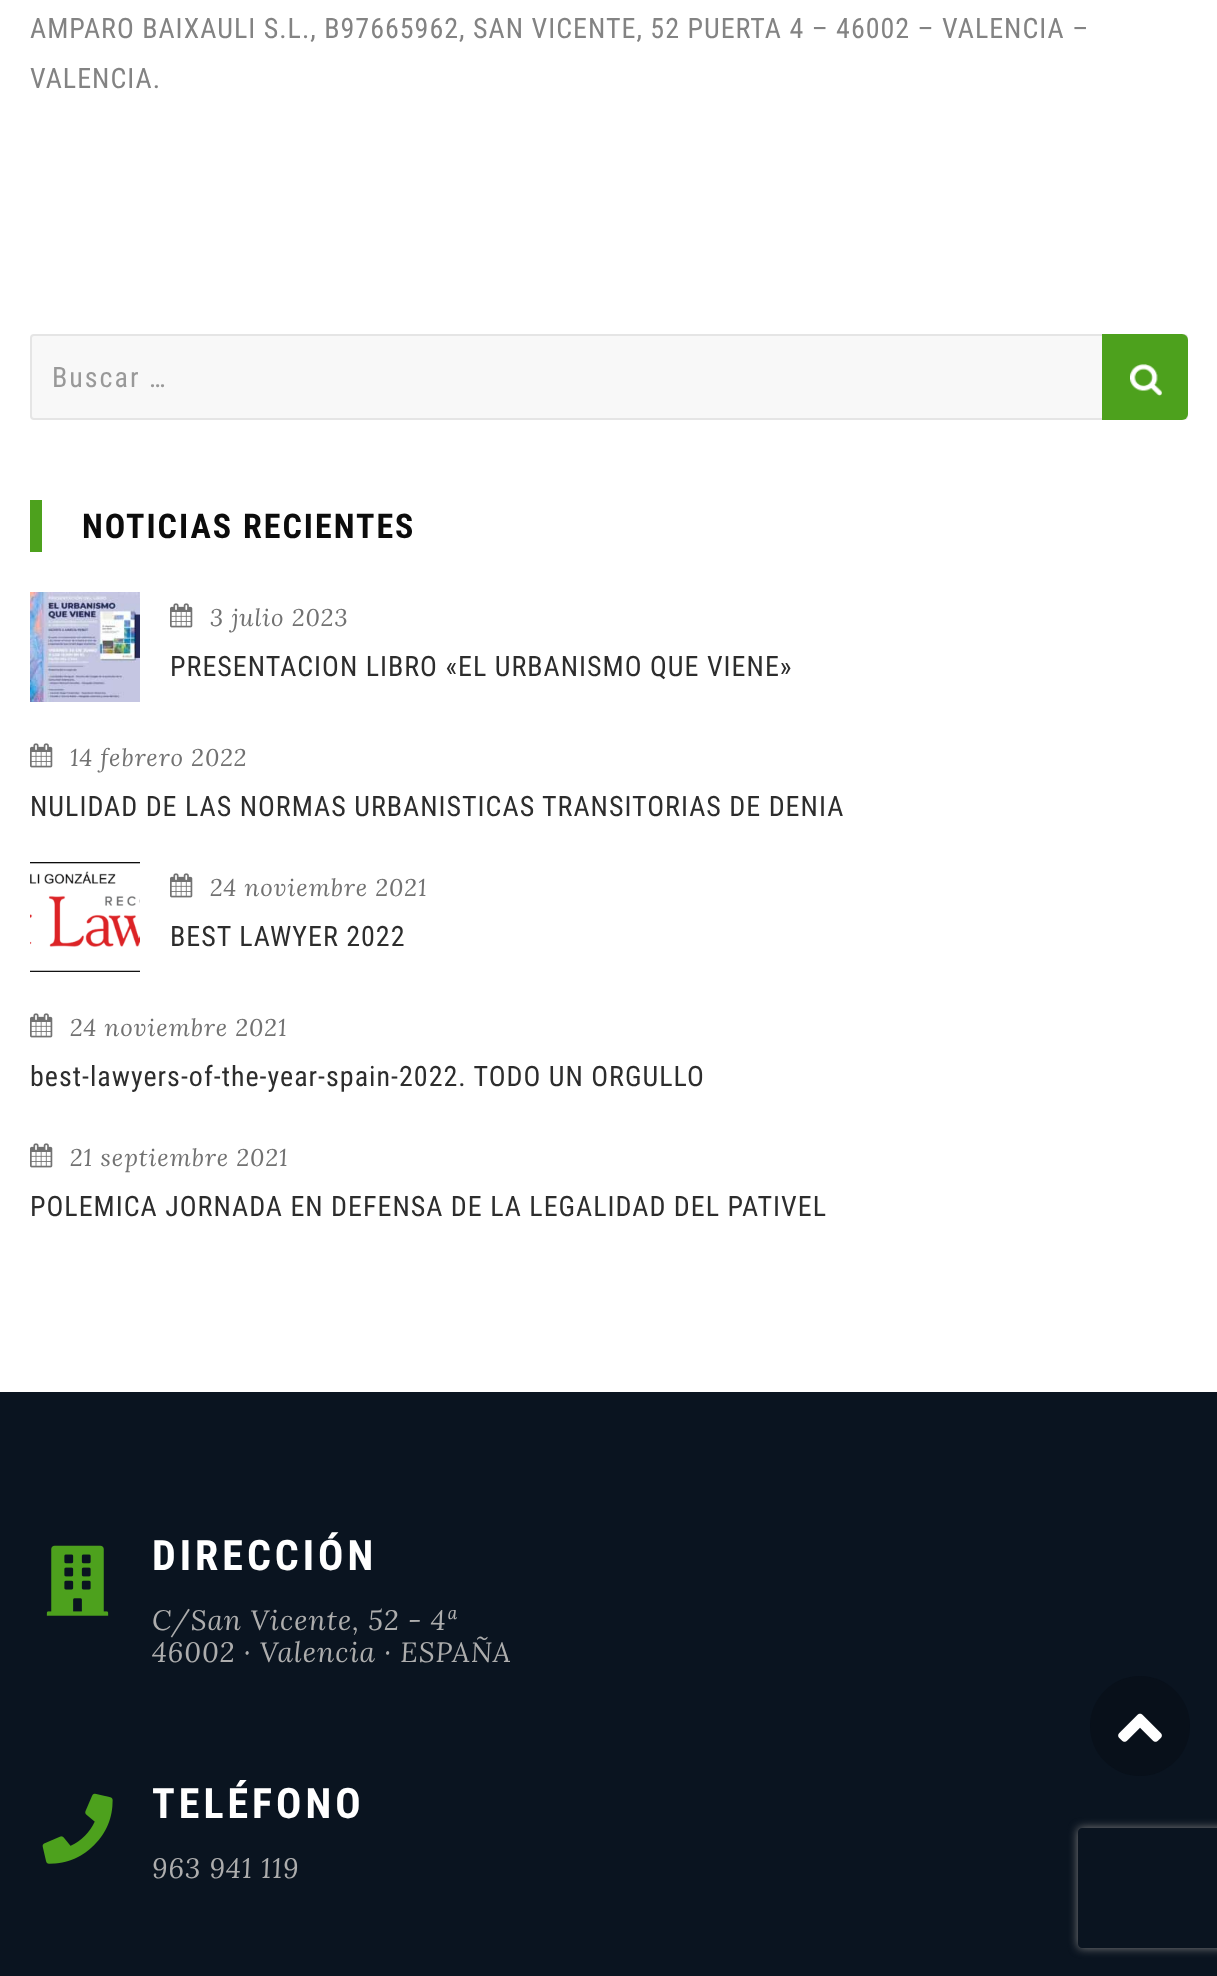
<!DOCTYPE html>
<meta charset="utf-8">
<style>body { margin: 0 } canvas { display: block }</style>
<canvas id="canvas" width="1217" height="1976"></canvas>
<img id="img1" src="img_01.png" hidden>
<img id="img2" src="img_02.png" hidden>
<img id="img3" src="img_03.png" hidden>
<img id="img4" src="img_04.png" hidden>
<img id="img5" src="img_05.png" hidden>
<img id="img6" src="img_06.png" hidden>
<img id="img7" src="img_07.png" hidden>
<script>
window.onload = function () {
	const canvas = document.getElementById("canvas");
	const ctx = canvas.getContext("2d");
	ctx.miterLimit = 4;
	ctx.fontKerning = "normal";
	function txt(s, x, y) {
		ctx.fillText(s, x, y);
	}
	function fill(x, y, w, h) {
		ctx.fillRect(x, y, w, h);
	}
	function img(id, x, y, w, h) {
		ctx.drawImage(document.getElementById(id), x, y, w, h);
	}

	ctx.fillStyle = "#FFFFFF";
	fill(0, 0, 1217, 1976);
	ctx.fillStyle = "#F8F8F8";
	ctx.beginPath();
	ctx.roundRect(31, 335, 1156, 84, 3);
	ctx.fill();
	ctx.strokeStyle = "#E5E5E5";
	ctx.lineWidth = 2;
	ctx.stroke();
	ctx.fillStyle = "#4DA11D";
	ctx.beginPath();
	ctx.roundRect(1102, 334, 86, 86, [0, 6, 6, 0]);
	ctx.fill();
	img("img1", 1130, 364, 32, 32);
	fill(30, 500, 12, 52);
	img("img2", 30, 592, 110, 110);
	img("img3", 170, 603, 23, 25);
	img("img3", 30, 743, 23, 25);
	img("img4", 30, 862, 110, 110);
	img("img3", 170, 873, 23, 25);
	img("img3", 30, 1013, 23, 25);
	img("img3", 30, 1143, 23, 25);
	ctx.fillStyle = "#0A1420";
	fill(0, 1392, 1217, 584);
	img("img5", 46, 1545, 63, 71);
	img("img6", 42, 1793, 71, 71);
	ctx.fillStyle = "#08101A";
	ctx.beginPath();
	ctx.arc(1140, 1726, 50, 0, Math.PI * 2);
	ctx.fill();
	img("img7", 1118, 1713, 44, 29);
	ctx.save();
	ctx.beginPath();
	ctx.moveTo(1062, 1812);
	ctx.lineTo(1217, 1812);
	ctx.lineTo(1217, 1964);
	ctx.lineTo(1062, 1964);
	ctx.closePath();
	ctx.moveTo(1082, 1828);
	ctx.lineTo(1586, 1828);
	ctx.bezierCurveTo(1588, 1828, 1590, 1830, 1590, 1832);
	ctx.lineTo(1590, 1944);
	ctx.bezierCurveTo(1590, 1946, 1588, 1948, 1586, 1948);
	ctx.lineTo(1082, 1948);
	ctx.bezierCurveTo(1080, 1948, 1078, 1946, 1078, 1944);
	ctx.lineTo(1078, 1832);
	ctx.bezierCurveTo(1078, 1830, 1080, 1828, 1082, 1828);
	ctx.closePath();
	ctx.clip("evenodd");
	ctx.fillStyle = "#808080";
	ctx.filter = "blur(5px)";
	ctx.beginPath();
	ctx.roundRect(1078, 1828, 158, 120, 4);
	ctx.fill();
	ctx.filter = "none";
	ctx.restore();
	ctx.letterSpacing = "1px";
	ctx.font = "28px Roboto Condensed";
	ctx.fillStyle = "#838383";
	txt("AMPARO BAIXAULI S.L., B97665962, SAN VICENTE, 52 PUERTA 4 – 46002 – VALENCIA –", 30, 38);
	txt("VALENCIA.", 30, 88);
	ctx.letterSpacing = "2px";
	ctx.fillStyle = "#999999";
	txt("Buscar …", 52, 387);
	ctx.font = "bold 34px Roboto Condensed";
	ctx.fillStyle = "#0C0C0C";
	txt("NOTICIAS RECIENTES", 82, 538);
	ctx.letterSpacing = "1px";
	ctx.font = "italic 24px Lora";
	ctx.fillStyle = "#727272";
	txt("3 julio 2023", 210, 626);
	ctx.font = "28px Roboto Condensed";
	ctx.fillStyle = "#2D2D2D";
	txt("PRESENTACION LIBRO «EL URBANISMO QUE VIENE»", 170, 676);
	ctx.font = "italic 24px Lora";
	ctx.fillStyle = "#727272";
	txt("14 febrero 2022", 70, 766);
	ctx.font = "28px Roboto Condensed";
	ctx.fillStyle = "#2D2D2D";
	txt("NULIDAD DE LAS NORMAS URBANISTICAS TRANSITORIAS DE DENIA", 30, 816);
	ctx.font = "italic 24px Lora";
	ctx.fillStyle = "#727272";
	txt("24 noviembre 2021", 210, 896);
	ctx.font = "28px Roboto Condensed";
	ctx.fillStyle = "#2D2D2D";
	txt("BEST LAWYER 2022", 170, 946);
	ctx.font = "italic 24px Lora";
	ctx.fillStyle = "#727272";
	txt("24 noviembre 2021", 70, 1036);
	ctx.font = "28px Roboto Condensed";
	ctx.fillStyle = "#2D2D2D";
	txt("best-lawyers-of-the-year-spain-2022. TODO UN ORGULLO", 30, 1086);
	ctx.font = "italic 24px Lora";
	ctx.fillStyle = "#727272";
	txt("21 septiembre 2021", 70, 1166);
	ctx.font = "28px Roboto Condensed";
	ctx.fillStyle = "#2D2D2D";
	txt("POLEMICA JORNADA EN DEFENSA DE LA LEGALIDAD DEL PATIVEL", 30, 1216);
	ctx.letterSpacing = "4px";
	ctx.font = "bold 42px Roboto Condensed";
	ctx.fillStyle = "#FFFFFF";
	txt("DIRECCIÓN", 152, 1570);
	ctx.letterSpacing = "1px";
	ctx.font = "italic 28px Lora";
	ctx.fillStyle = "#ADADAD";
	txt("C/San Vicente, 52 - 4ª", 152, 1630);
	txt("46002 · Valencia · ESPAÑA", 152, 1662);
	ctx.letterSpacing = "4px";
	ctx.font = "bold 42px Roboto Condensed";
	ctx.fillStyle = "#FFFFFF";
	txt("TELÉFONO", 152, 1818);
	ctx.letterSpacing = "1px";
	ctx.font = "italic 28px Lora";
	ctx.fillStyle = "#ADADAD";
	txt("963 941 119", 152, 1878);
};
</script>
